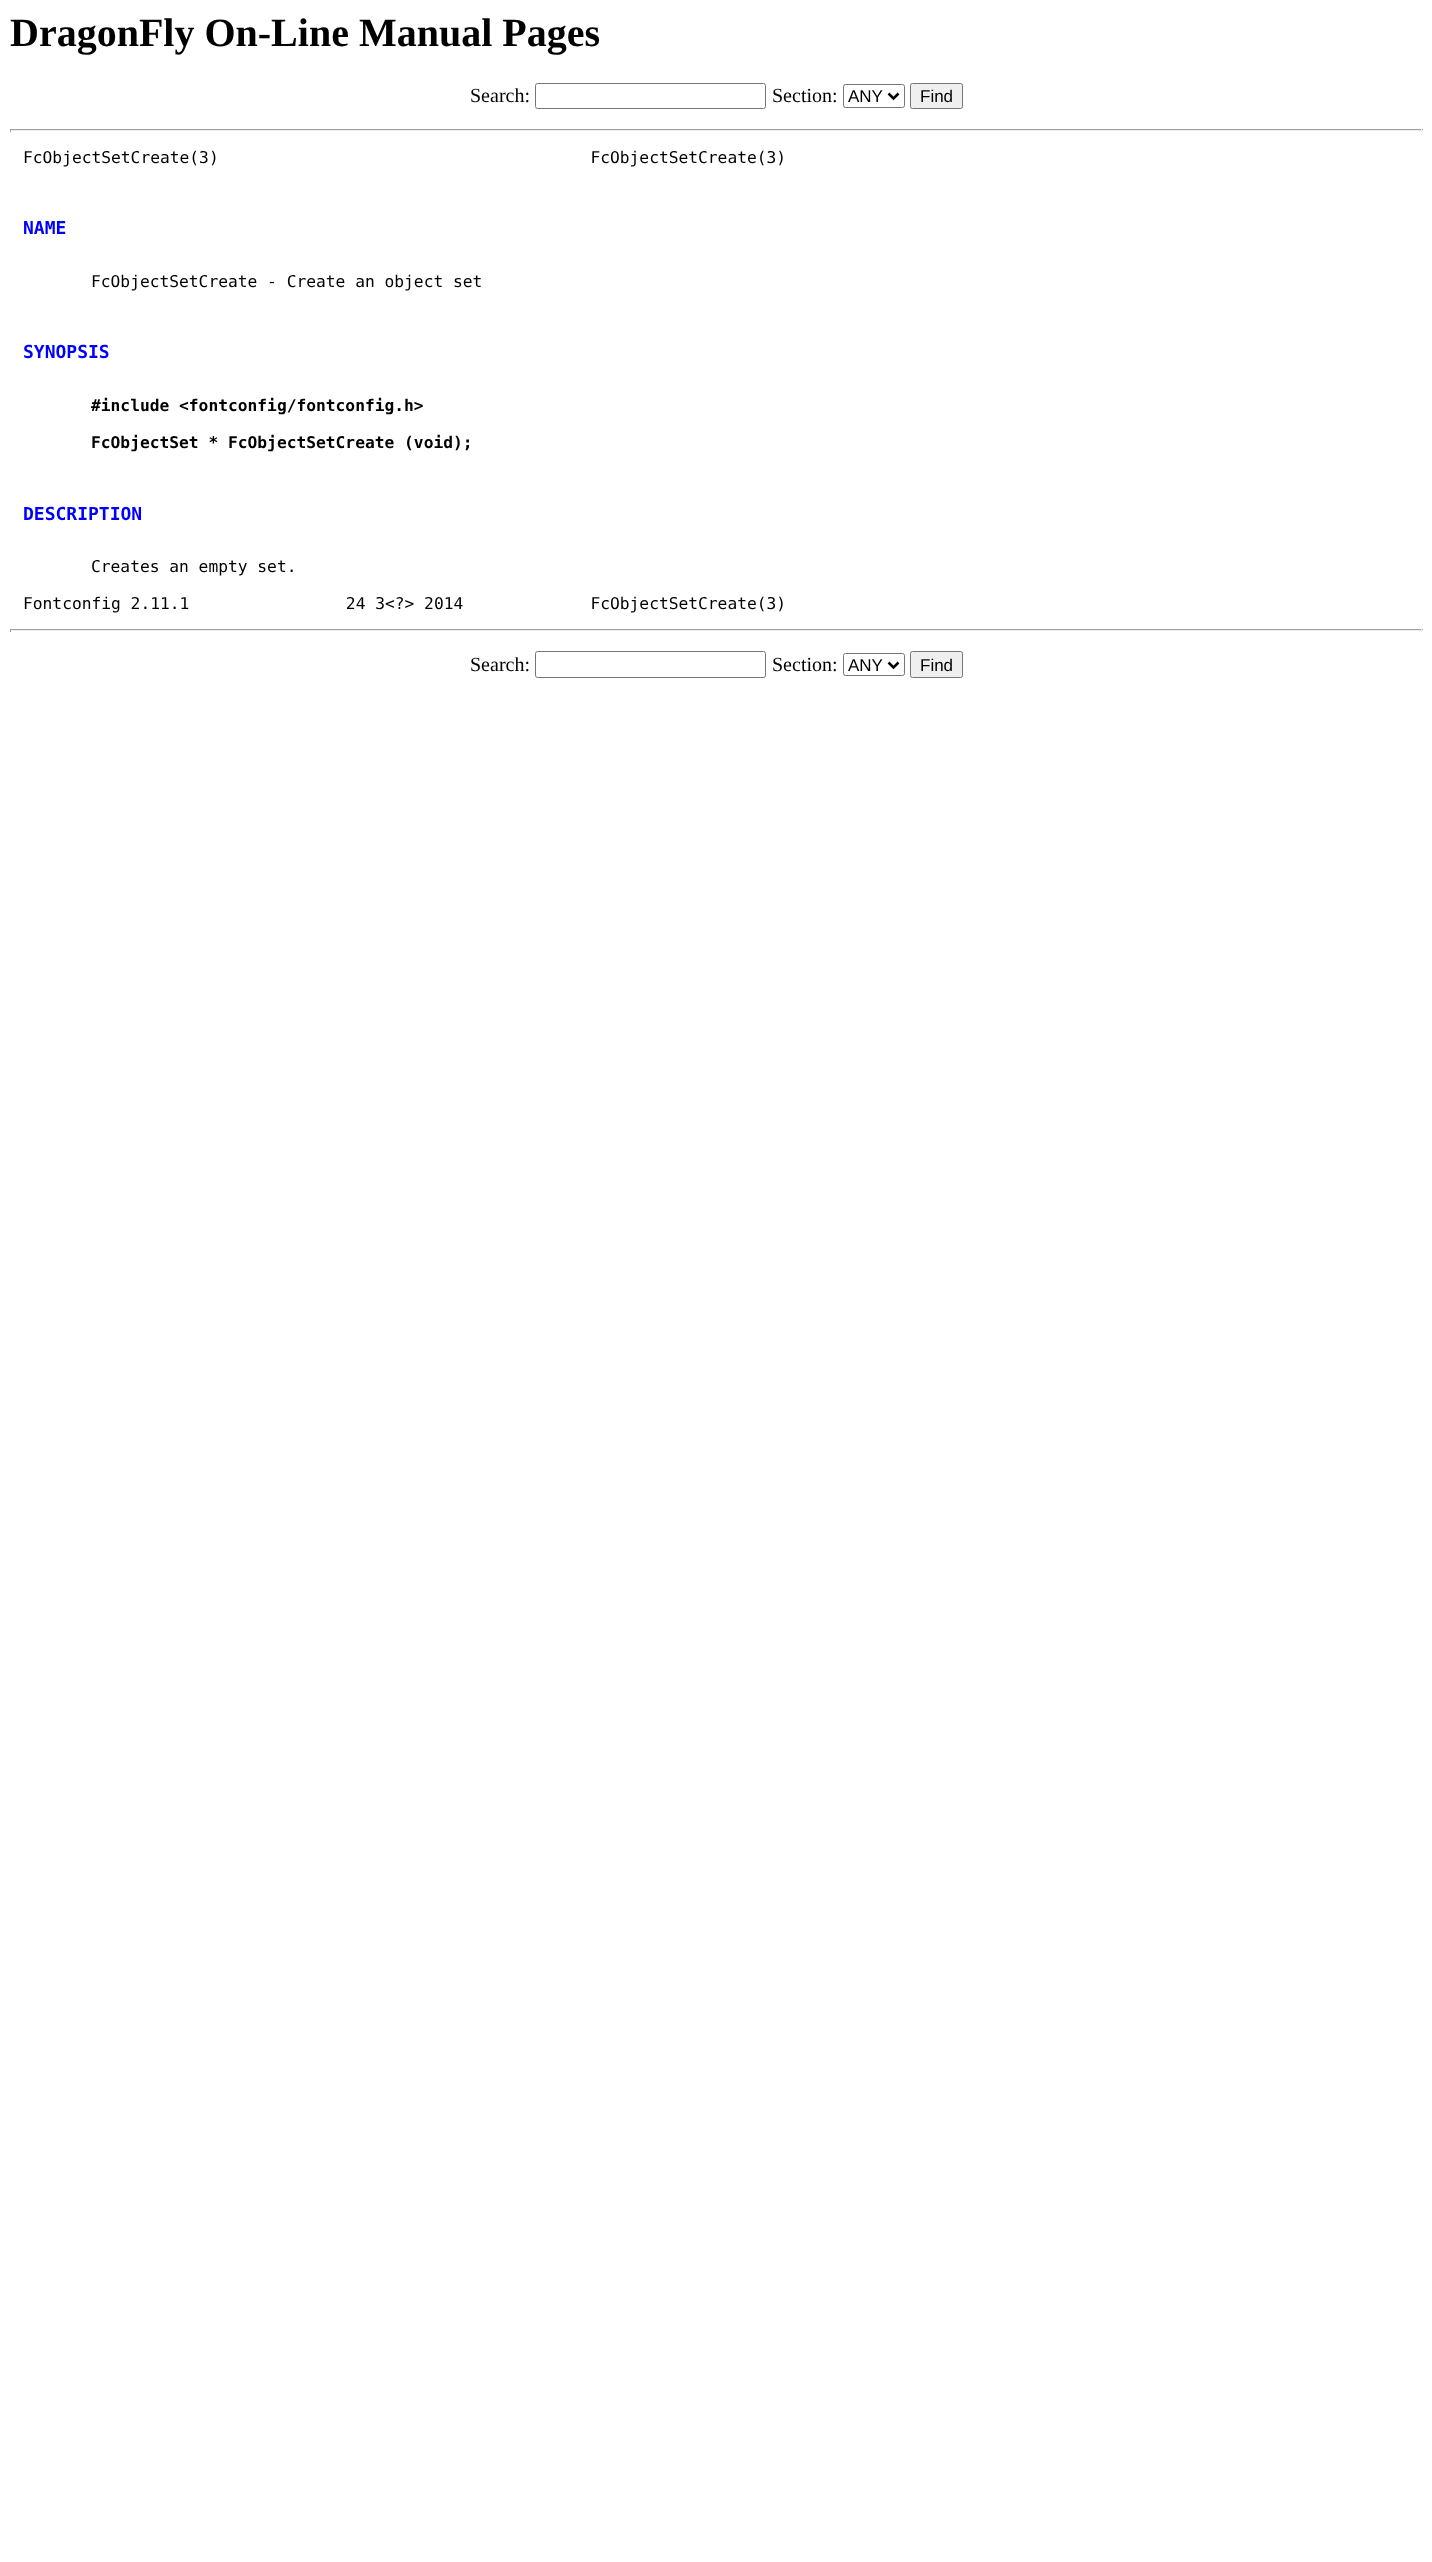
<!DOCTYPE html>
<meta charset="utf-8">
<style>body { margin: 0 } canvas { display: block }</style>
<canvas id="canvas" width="1432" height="2562"></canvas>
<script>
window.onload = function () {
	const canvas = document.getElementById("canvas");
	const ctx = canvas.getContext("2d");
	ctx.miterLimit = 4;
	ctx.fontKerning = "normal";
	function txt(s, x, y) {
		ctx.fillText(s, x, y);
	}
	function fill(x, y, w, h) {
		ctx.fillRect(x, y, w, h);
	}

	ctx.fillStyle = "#FFFFFF";
	fill(0, 0, 1432, 2562);
	ctx.beginPath();
	ctx.roundRect(535.5, 83.5, 230, 25, 2);
	ctx.strokeStyle = "#767676";
	ctx.stroke();
	ctx.beginPath();
	ctx.roundRect(843.5, 84.5, 61, 23, 2);
	ctx.stroke();
	ctx.beginPath();
	ctx.moveTo(888.5, 93.5);
	ctx.lineTo(893.5, 98.5);
	ctx.lineTo(898.5, 93.5);
	ctx.strokeStyle = "#000000";
	ctx.lineWidth = 2.5;
	ctx.stroke();
	ctx.fillStyle = "#EFEFEF";
	ctx.beginPath();
	ctx.roundRect(910.5, 83.5, 52, 25, 2);
	ctx.fill();
	ctx.strokeStyle = "#767676";
	ctx.lineWidth = 1;
	ctx.stroke();
	ctx.fillStyle = "#9F9F9F";
	fill(10, 129, 1413, 1);
	ctx.fillStyle = "#EEEEEE";
	fill(1421, 129, 1, 3);
	fill(10, 130, 1413, 1);
	ctx.fillStyle = "#9F9F9F";
	fill(10, 129, 1, 3);
	fill(10, 629, 1413, 1);
	ctx.fillStyle = "#EEEEEE";
	fill(1421, 629, 1, 3);
	fill(10, 630, 1413, 1);
	ctx.fillStyle = "#9F9F9F";
	fill(10, 629, 1, 3);
	ctx.beginPath();
	ctx.roundRect(535.5, 651.5, 230, 26, 2);
	ctx.stroke();
	ctx.beginPath();
	ctx.roundRect(843.5, 653.5, 61, 22, 2);
	ctx.stroke();
	ctx.beginPath();
	ctx.moveTo(888.5, 662.5);
	ctx.lineTo(893.5, 667.5);
	ctx.lineTo(898.5, 662.5);
	ctx.strokeStyle = "#000000";
	ctx.lineWidth = 2.5;
	ctx.stroke();
	ctx.fillStyle = "#EFEFEF";
	ctx.beginPath();
	ctx.roundRect(910.5, 651.5, 52, 26, 2);
	ctx.fill();
	ctx.strokeStyle = "#767676";
	ctx.lineWidth = 1;
	ctx.stroke();
	ctx.font = "bold 40px Liberation Serif";
	ctx.fillStyle = "#000000";
	txt("DragonFly On-Line Manual Pages", 10, 46);
	ctx.font = "20px Liberation Serif";
	txt("Search:", 470, 102);
	txt("Section:", 772, 102);
	ctx.font = "17px Liberation Sans";
	txt("ANY", 848, 102);
	txt("Find", 920, 102);
	ctx.font = "16.25px DejaVu Sans Mono";
	txt("FcObjectSetCreate(3)                                      FcObjectSetCreate(3)", 23, 163);
	ctx.font = "bold 18px DejaVu Sans Mono";
	ctx.fillStyle = "#0000FF";
	txt("NAME", 23, 234);
	ctx.font = "16.25px DejaVu Sans Mono";
	ctx.fillStyle = "#000000";
	txt("FcObjectSetCreate - Create an object set", 91, 287);
	ctx.font = "bold 18px DejaVu Sans Mono";
	ctx.fillStyle = "#0000FF";
	txt("SYNOPSIS", 23, 358);
	ctx.font = "bold 16.25px DejaVu Sans Mono";
	ctx.fillStyle = "#000000";
	txt("#include <fontconfig/fontconfig.h>", 91, 411);
	txt("FcObjectSet * FcObjectSetCreate (void);", 91, 448);
	ctx.font = "bold 18px DejaVu Sans Mono";
	ctx.fillStyle = "#0000FF";
	txt("DESCRIPTION", 23, 520);
	ctx.font = "16.25px DejaVu Sans Mono";
	ctx.fillStyle = "#000000";
	txt("Creates an empty set.", 91, 572);
	txt("Fontconfig 2.11.1                24 3<?> 2014             FcObjectSetCreate(3)", 23, 609);
	ctx.font = "20px Liberation Serif";
	txt("Search:", 470, 671);
	txt("Section:", 772, 671);
	ctx.font = "17px Liberation Sans";
	txt("ANY", 848, 671);
	txt("Find", 920, 671);
};
</script>
